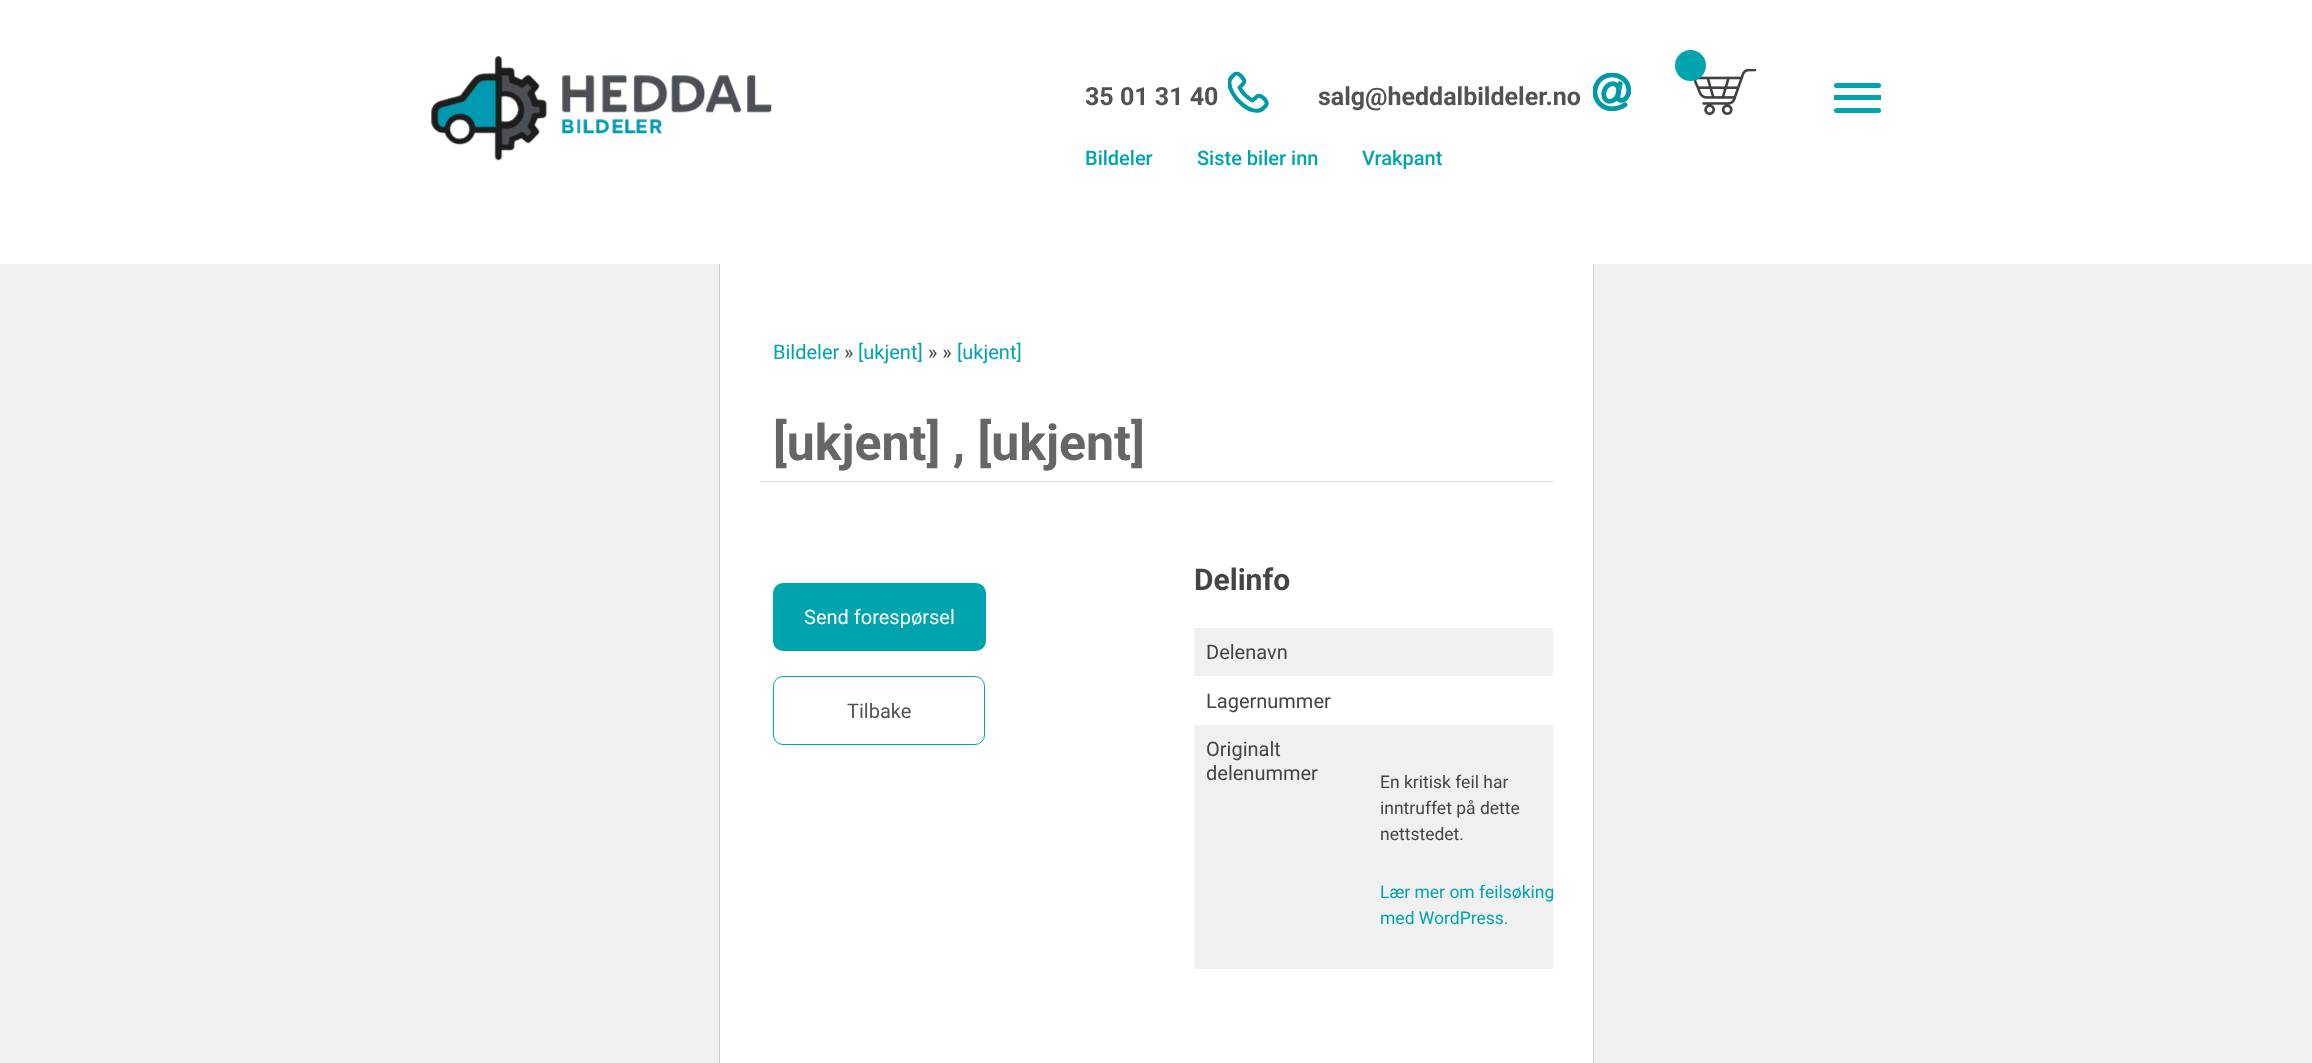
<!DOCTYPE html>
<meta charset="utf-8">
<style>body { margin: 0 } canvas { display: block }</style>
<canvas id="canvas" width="2312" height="1063"></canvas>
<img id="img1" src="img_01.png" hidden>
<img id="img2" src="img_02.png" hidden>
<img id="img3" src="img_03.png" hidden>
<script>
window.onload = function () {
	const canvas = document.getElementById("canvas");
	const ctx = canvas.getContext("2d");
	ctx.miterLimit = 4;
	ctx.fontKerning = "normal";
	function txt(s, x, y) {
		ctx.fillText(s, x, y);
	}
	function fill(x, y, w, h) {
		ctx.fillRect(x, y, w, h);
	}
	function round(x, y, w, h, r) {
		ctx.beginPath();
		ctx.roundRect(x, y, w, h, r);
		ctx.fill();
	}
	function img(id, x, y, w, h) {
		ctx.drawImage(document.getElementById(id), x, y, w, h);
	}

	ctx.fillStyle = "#F1F1F1";
	fill(0, 0, 2312, 1063);
	ctx.fillStyle = "#FFFFFF";
	fill(720, 264, 873, 799);
	ctx.strokeStyle = "#CCD0D4";
	ctx.strokeRect(719.5, 63.5, 874, 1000);
	fill(0, 0, 2312, 264);
	img("img1", 431, 56, 341, 105);
	ctx.save();
	ctx.beginPath();
	ctx.rect(1228, 71, 41, 42);
	ctx.clip();
	ctx.beginPath();
	ctx.moveTo(1263.5, 108);
	ctx.bezierCurveTo(1252.5, 119, 1227.5, 95, 1229.5, 81);
	ctx.bezierCurveTo(1230, 78.5, 1231.5, 77, 1233, 75.5);
	ctx.bezierCurveTo(1236, 72.5, 1238, 73, 1240.5, 75.5);
	ctx.bezierCurveTo(1246.5, 81.5, 1245, 82, 1239.5, 87.5);
	ctx.bezierCurveTo(1242.5, 93, 1247, 97.5, 1252.5, 100.5);
	ctx.lineTo(1257.5, 96);
	ctx.bezierCurveTo(1261.5, 94.5, 1269.5, 102, 1265.5, 106);
	ctx.closePath();
	ctx.strokeStyle = "#009AA6";
	ctx.lineWidth = 4;
	ctx.lineCap = "round";
	ctx.lineJoin = "round";
	ctx.stroke();
	ctx.restore();
	img("img2", 1593, 73, 38, 38);
	img("img3", 1694, 69, 62, 46);
	ctx.fillStyle = "#00A4AD";
	ctx.beginPath();
	ctx.arc(1690.5, 65.5, 15.5, 0, Math.PI * 2);
	ctx.fill();
	fill(1834, 95, 47, 5);
	round(1834, 83, 47, 5, 2.5);
	round(1834, 108, 47, 5, 2.5);
	ctx.fillStyle = "#DADADA";
	fill(760, 481, 793, 1);
	ctx.fillStyle = "#00A4AD";
	round(773, 583, 213, 68, 10);
	ctx.beginPath();
	ctx.roundRect(773.5, 676.5, 211, 68, 9.5);
	ctx.strokeStyle = "#00A4AD";
	ctx.stroke();
	ctx.fillStyle = "#F0F0F0";
	fill(1194, 628, 359, 48);
	fill(1194, 725, 359, 244);
	ctx.font = "bold 25px Roboto";
	ctx.fillStyle = "#525251";
	txt("35 01 31 40", 1085, 105);
	txt("salg@heddalbildeler.no", 1318, 105);
	ctx.font = "500 20px Roboto";
	ctx.fillStyle = "#00A4AD";
	txt("Bildeler", 1085, 165);
	txt("Siste biler inn", 1197, 165);
	txt("Vrakpant", 1362, 165);
	ctx.font = "20px Roboto";
	txt("Bildeler", 773, 359);
	ctx.fillStyle = "#444444";
	txt("»", 844, 359);
	ctx.fillStyle = "#00A4AD";
	txt("[ukjent]", 858, 359);
	ctx.fillStyle = "#444444";
	txt("» »", 928, 359);
	ctx.fillStyle = "#00A4AD";
	txt("[ukjent]", 957, 359);
	ctx.font = "bold 50px Roboto";
	ctx.fillStyle = "#666666";
	txt("[ukjent] , [ukjent]", 773, 460);
	ctx.font = "20px Roboto";
	ctx.fillStyle = "#FFFFFF";
	txt("Send forespørsel", 804, 624);
	ctx.fillStyle = "#525251";
	txt("Tilbake", 847, 718);
	ctx.font = "bold 30px Roboto";
	ctx.fillStyle = "#444444";
	txt("Delinfo", 1194, 590);
	ctx.font = "20px Roboto";
	txt("Delenavn", 1206, 659);
	txt("Lagernummer", 1206, 708);
	txt("Originalt", 1206, 756);
	txt("delenummer", 1206, 780);
	ctx.font = "17.5px Roboto";
	txt("En kritisk feil har", 1380, 788);
	txt("inntruffet på dette", 1380, 814);
	txt("nettstedet.", 1380, 840);
	ctx.fillStyle = "#00A4AD";
	txt("Lær mer om feilsøking", 1380, 898);
	txt("med WordPress.", 1380, 924);
};
</script>
